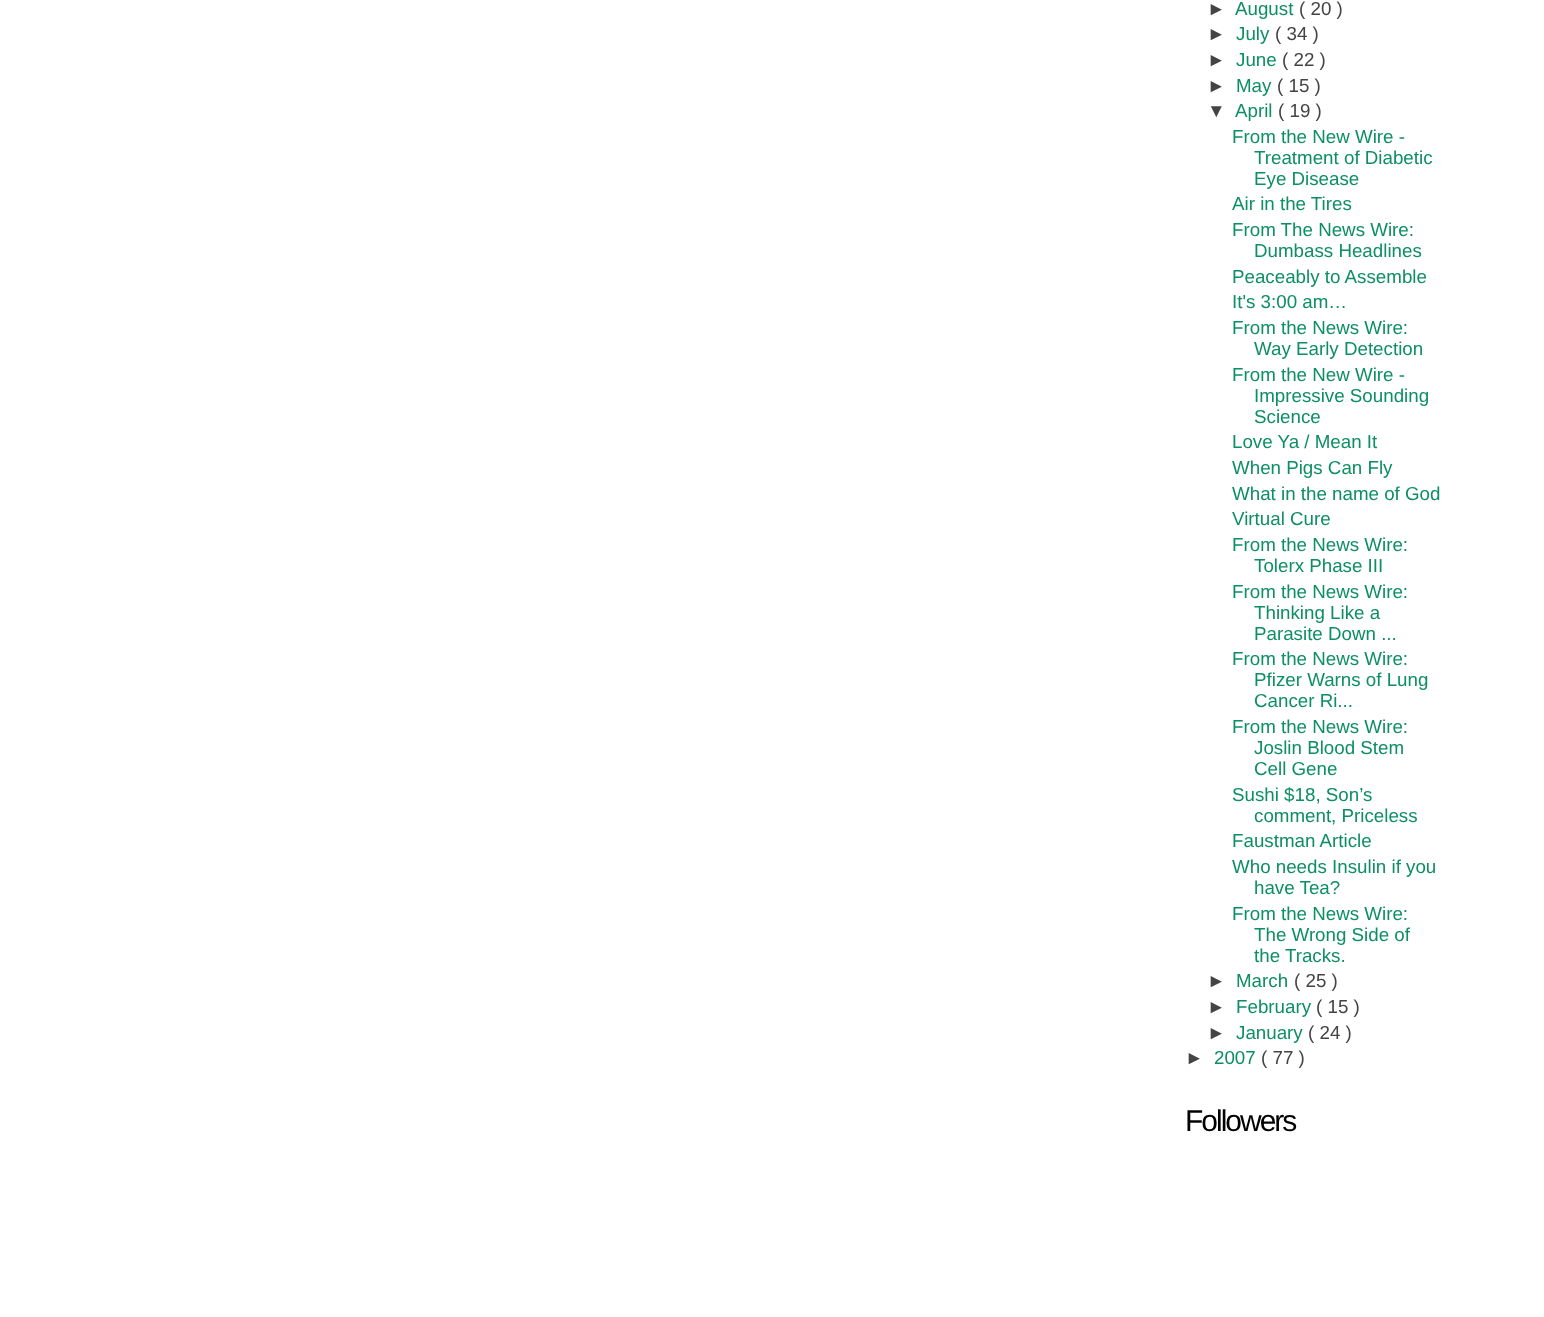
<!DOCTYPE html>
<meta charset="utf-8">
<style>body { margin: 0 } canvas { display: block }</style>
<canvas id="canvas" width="1544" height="1317"></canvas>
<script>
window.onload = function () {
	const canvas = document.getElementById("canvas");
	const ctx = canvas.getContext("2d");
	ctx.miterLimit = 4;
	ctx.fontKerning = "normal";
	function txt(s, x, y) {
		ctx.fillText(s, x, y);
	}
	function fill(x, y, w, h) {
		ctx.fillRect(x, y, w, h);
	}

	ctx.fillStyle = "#FFFFFF";
	fill(0, 0, 1544, 1317);
	ctx.font = "18.75px Liberation Sans";
	ctx.fillStyle = "#444444";
	txt("►", 1207, 15);
	ctx.fillStyle = "#0D8F63";
	txt("August", 1235, 15);
	ctx.fillStyle = "#444444";
	txt("( 20 )", 1299, 15);
	txt("►", 1207, 40);
	ctx.fillStyle = "#0D8F63";
	txt("July", 1236, 40);
	ctx.fillStyle = "#444444";
	txt("( 34 )", 1275, 40);
	txt("►", 1207, 66);
	ctx.fillStyle = "#0D8F63";
	txt("June", 1236, 66);
	ctx.fillStyle = "#444444";
	txt("( 22 )", 1282, 66);
	txt("►", 1207, 92);
	ctx.fillStyle = "#0D8F63";
	txt("May", 1236, 92);
	ctx.fillStyle = "#444444";
	txt("( 15 )", 1277, 92);
	txt("▼", 1207, 117);
	ctx.fillStyle = "#0D8F63";
	txt("April", 1235, 117);
	ctx.fillStyle = "#444444";
	txt("( 19 )", 1278, 117);
	ctx.fillStyle = "#0D8F63";
	txt("From the New Wire -", 1232, 143);
	txt("Treatment of Diabetic", 1254, 164);
	txt("Eye Disease", 1254, 185);
	txt("Air in the Tires", 1232, 210);
	txt("From The News Wire:", 1232, 236);
	txt("Dumbass Headlines", 1254, 257);
	txt("Peaceably to Assemble", 1232, 283);
	txt("It's 3:00 am…", 1232, 308);
	txt("From the News Wire:", 1232, 334);
	txt("Way Early Detection", 1254, 355);
	txt("From the New Wire -", 1232, 381);
	txt("Impressive Sounding", 1254, 402);
	txt("Science", 1254, 423);
	txt("Love Ya / Mean It", 1232, 448);
	txt("When Pigs Can Fly", 1232, 474);
	txt("What in the name of God", 1232, 500);
	txt("Virtual Cure", 1232, 525);
	txt("From the News Wire:", 1232, 551);
	txt("Tolerx Phase III", 1254, 572);
	txt("From the News Wire:", 1232, 598);
	txt("Thinking Like a", 1254, 619);
	txt("Parasite Down ...", 1254, 640);
	txt("From the News Wire:", 1232, 665);
	txt("Pfizer Warns of Lung", 1254, 686);
	txt("Cancer Ri...", 1254, 707);
	txt("From the News Wire:", 1232, 733);
	txt("Joslin Blood Stem", 1254, 754);
	txt("Cell Gene", 1254, 775);
	txt("Sushi $18, Son’s", 1232, 801);
	txt("comment, Priceless", 1254, 822);
	txt("Faustman Article", 1232, 847);
	txt("Who needs Insulin if you", 1232, 873);
	txt("have Tea?", 1254, 894);
	txt("From the News Wire:", 1232, 920);
	txt("The Wrong Side of", 1254, 941);
	txt("the Tracks.", 1254, 962);
	ctx.fillStyle = "#444444";
	txt("►", 1207, 987);
	ctx.fillStyle = "#0D8F63";
	txt("March", 1236, 987);
	ctx.fillStyle = "#444444";
	txt("( 25 )", 1294, 987);
	txt("►", 1207, 1013);
	ctx.fillStyle = "#0D8F63";
	txt("February", 1236, 1013);
	ctx.fillStyle = "#444444";
	txt("( 15 )", 1316, 1013);
	txt("►", 1207, 1039);
	ctx.fillStyle = "#0D8F63";
	txt("January", 1236, 1039);
	ctx.fillStyle = "#444444";
	txt("( 24 )", 1308, 1039);
	txt("►", 1185, 1064);
	ctx.fillStyle = "#0D8F63";
	txt("2007", 1214, 1064);
	ctx.fillStyle = "#444444";
	txt("( 77 )", 1261, 1064);
	ctx.letterSpacing = "-2px";
	ctx.font = "30px Liberation Sans";
	ctx.fillStyle = "#000000";
	txt("Followers", 1185, 1131);
};
</script>
